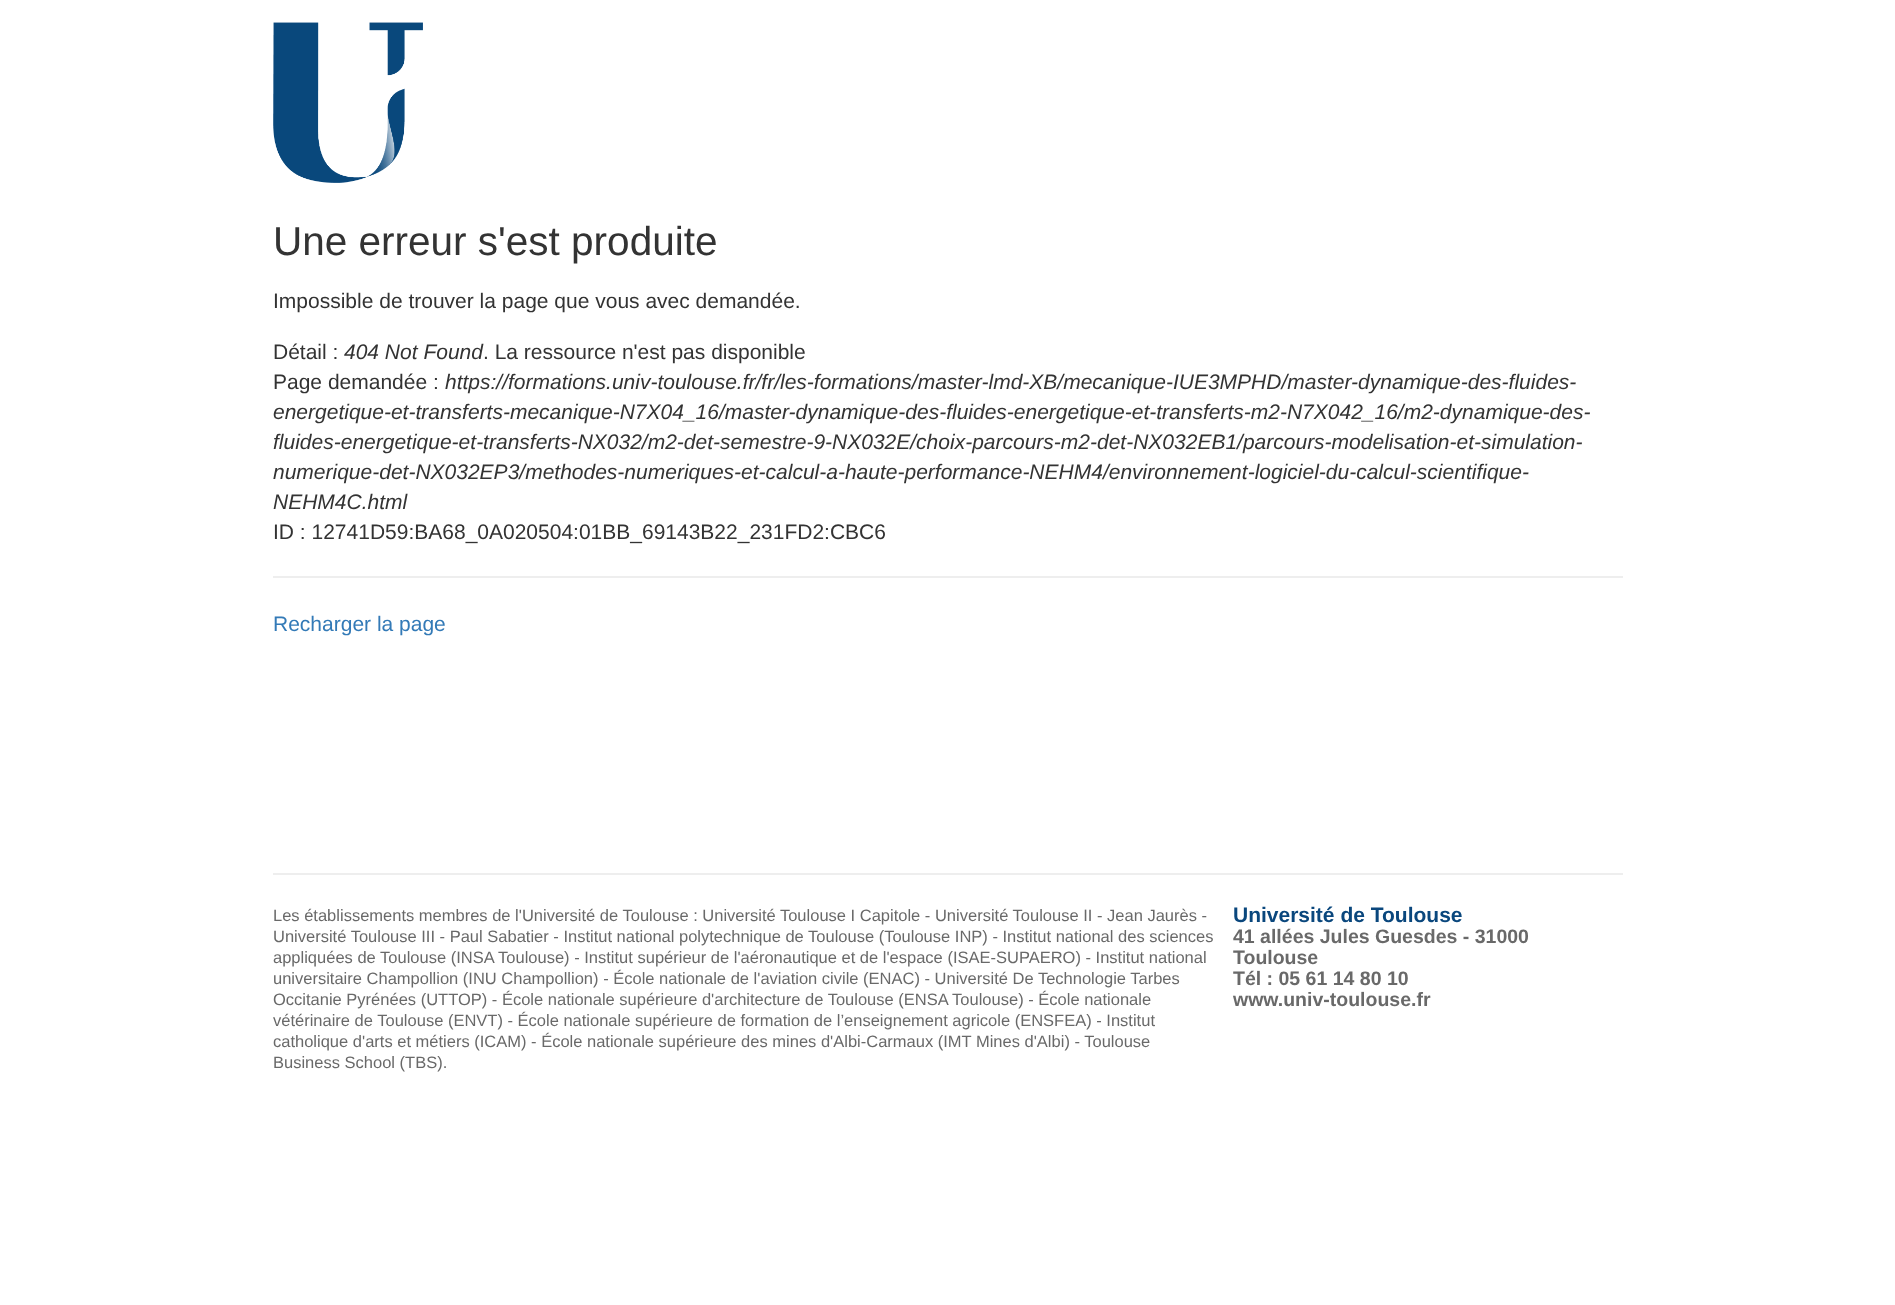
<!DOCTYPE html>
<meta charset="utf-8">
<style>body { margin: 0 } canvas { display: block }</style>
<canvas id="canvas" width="1895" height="1305"></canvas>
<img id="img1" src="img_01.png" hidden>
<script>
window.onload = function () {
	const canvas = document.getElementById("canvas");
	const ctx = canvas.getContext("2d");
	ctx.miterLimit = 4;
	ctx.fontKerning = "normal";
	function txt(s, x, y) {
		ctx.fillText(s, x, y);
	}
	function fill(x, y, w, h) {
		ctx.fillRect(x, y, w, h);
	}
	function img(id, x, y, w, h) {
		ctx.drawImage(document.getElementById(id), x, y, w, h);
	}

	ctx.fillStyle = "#FFFFFF";
	fill(0, 0, 1895, 1305);
	img("img1", 273, 22, 150, 161);
	ctx.fillStyle = "#EEEEEE";
	fill(273, 576, 1350, 2);
	fill(273, 873, 1350, 2);
	ctx.font = "40.5px Liberation Sans";
	ctx.fillStyle = "#333333";
	txt("Une erreur s'est produite", 273, 255);
	ctx.font = "21px Liberation Sans";
	txt("Impossible de trouver la page que vous avec demandée.", 273, 308);
	txt("Détail :", 273, 359);
	ctx.font = "italic 21px Liberation Sans";
	txt("404 Not Found", 344, 359);
	ctx.font = "21px Liberation Sans";
	txt(". La ressource n'est pas disponible", 483, 359);
	txt("Page demandée :", 273, 389);
	ctx.font = "italic 21px Liberation Sans";
	txt("https://formations.univ-toulouse.fr/fr/les-formations/master-lmd-XB/mecanique-IUE3MPHD/master-dynamique-des-fluides-", 445, 389);
	txt("energetique-et-transferts-mecanique-N7X04_16/master-dynamique-des-fluides-energetique-et-transferts-m2-N7X042_16/m2-dynamique-des-", 273, 419);
	txt("fluides-energetique-et-transferts-NX032/m2-det-semestre-9-NX032E/choix-parcours-m2-det-NX032EB1/parcours-modelisation-et-simulation-", 273, 449);
	txt("numerique-det-NX032EP3/methodes-numeriques-et-calcul-a-haute-performance-NEHM4/environnement-logiciel-du-calcul-scientifique-", 273, 479);
	txt("NEHM4C.html", 273, 509);
	ctx.font = "21px Liberation Sans";
	txt("ID : 12741D59:BA68_0A020504:01BB_69143B22_231FD2:CBC6", 273, 539);
	ctx.fillStyle = "#337AB7";
	txt("Recharger la page", 273, 631);
	ctx.font = "16.5px Liberation Sans";
	ctx.fillStyle = "#696969";
	txt("Les établissements membres de l'Université de Toulouse : Université Toulouse I Capitole - Université Toulouse II - Jean Jaurès -", 273, 921);
	txt("Université Toulouse III - Paul Sabatier - Institut national polytechnique de Toulouse (Toulouse INP) - Institut national des sciences", 273, 942);
	txt("appliquées de Toulouse (INSA Toulouse) - Institut supérieur de l'aéronautique et de l'espace (ISAE-SUPAERO) - Institut national", 273, 963);
	txt("universitaire Champollion (INU Champollion) - École nationale de l'aviation civile (ENAC) - Université De Technologie Tarbes", 273, 984);
	txt("Occitanie Pyrénées (UTTOP) - École nationale supérieure d'architecture de Toulouse (ENSA Toulouse) - École nationale", 273, 1005);
	txt("vétérinaire de Toulouse (ENVT) - École nationale supérieure de formation de l’enseignement agricole (ENSFEA) - Institut", 273, 1026);
	txt("catholique d'arts et métiers (ICAM) - École nationale supérieure des mines d'Albi-Carmaux (IMT Mines d'Albi) - Toulouse", 273, 1047);
	txt("Business School (TBS).", 273, 1068);
	ctx.font = "bold 21px Liberation Sans";
	ctx.fillStyle = "#0A477D";
	txt("Université de Toulouse", 1233, 922);
	ctx.font = "bold 19.5px Liberation Sans";
	ctx.fillStyle = "#696969";
	txt("41 allées Jules Guesdes - 31000", 1233, 943);
	txt("Toulouse", 1233, 964);
	txt("Tél : 05 61 14 80 10", 1233, 985);
	txt("www.univ-toulouse.fr", 1233, 1006);
};
</script>
